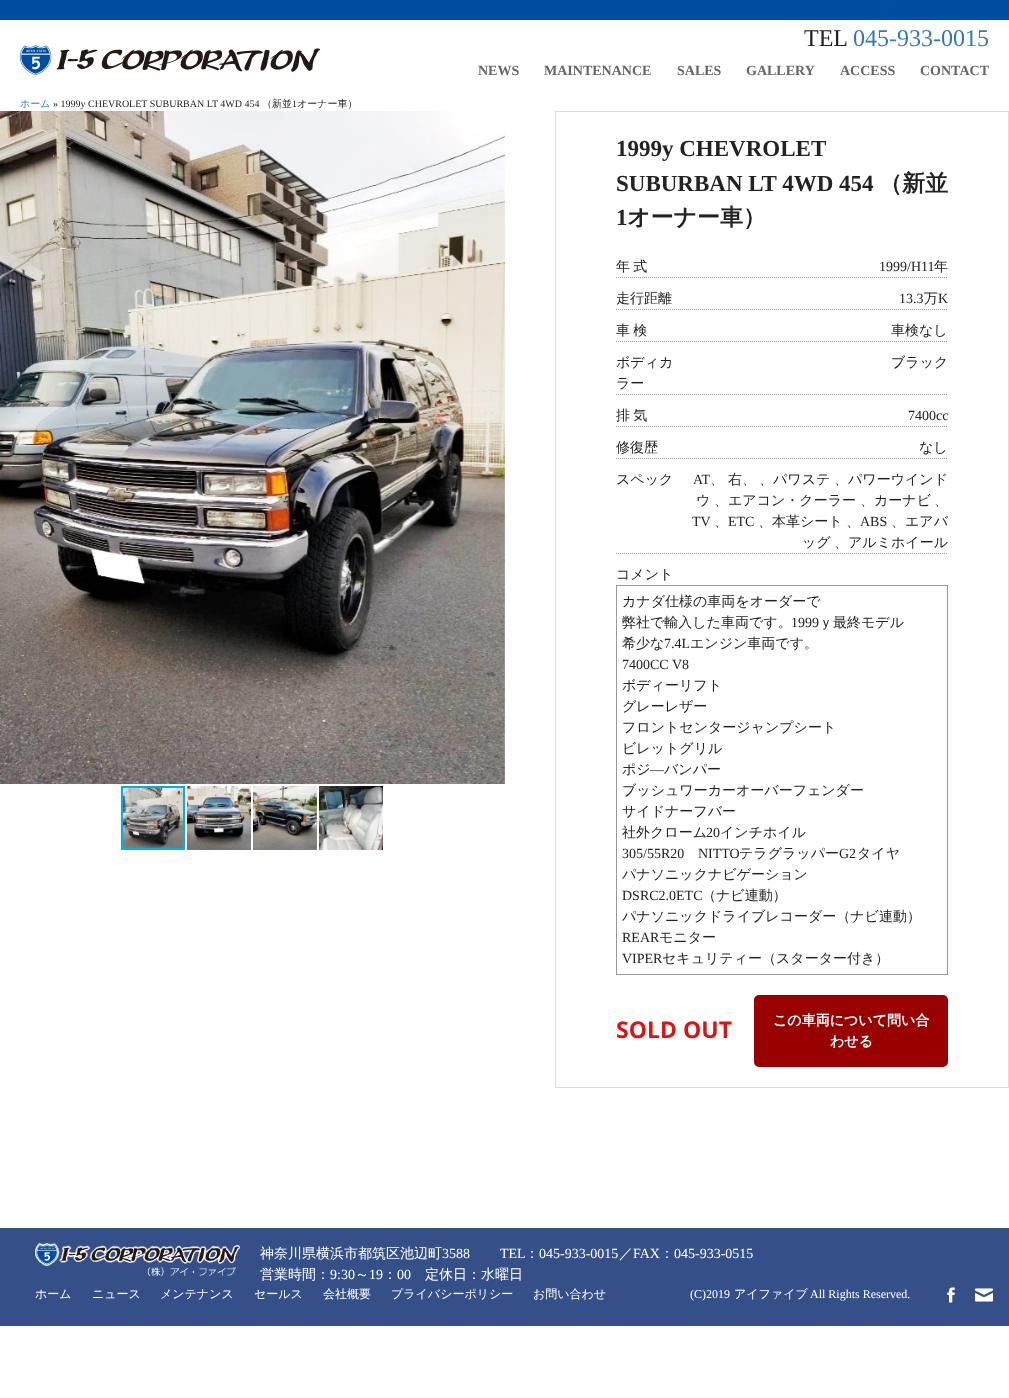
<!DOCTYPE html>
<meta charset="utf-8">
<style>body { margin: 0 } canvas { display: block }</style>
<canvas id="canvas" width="1009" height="1398"></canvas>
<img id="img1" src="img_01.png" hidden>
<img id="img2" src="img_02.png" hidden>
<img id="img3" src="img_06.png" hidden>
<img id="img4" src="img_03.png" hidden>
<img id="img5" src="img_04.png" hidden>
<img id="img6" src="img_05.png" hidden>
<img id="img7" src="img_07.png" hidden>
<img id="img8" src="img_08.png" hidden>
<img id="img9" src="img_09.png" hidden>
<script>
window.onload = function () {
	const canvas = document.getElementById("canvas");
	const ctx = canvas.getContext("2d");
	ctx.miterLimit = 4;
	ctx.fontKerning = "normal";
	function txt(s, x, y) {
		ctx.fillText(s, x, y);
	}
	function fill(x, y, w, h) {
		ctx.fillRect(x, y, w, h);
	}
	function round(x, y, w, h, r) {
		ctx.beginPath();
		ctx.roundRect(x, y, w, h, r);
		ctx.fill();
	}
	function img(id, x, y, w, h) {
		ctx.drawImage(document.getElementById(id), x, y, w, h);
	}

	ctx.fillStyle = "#FFFFFF";
	fill(0, 0, 1009, 1398);
	ctx.fillStyle = "#004EA2";
	fill(0, 0, 1009, 20);
	img("img1", 20, 45, 300, 30);
	img("img2", 0, 111, 505, 673);
	img("img3", 123, 788, 60, 60);
	ctx.strokeStyle = "#00AFEA";
	ctx.lineWidth = 2;
	ctx.strokeRect(122, 787, 62, 62);
	img("img4", 187, 786, 64, 64);
	img("img5", 253, 786, 64, 64);
	img("img6", 319, 786, 64, 64);
	ctx.strokeStyle = "#DDDDDD";
	ctx.lineWidth = 1;
	ctx.strokeRect(555.5, 111.5, 453, 976);
	ctx.beginPath();
	ctx.moveTo(616, 277.5);
	ctx.lineTo(948, 277.5);
	ctx.strokeStyle = "#999999";
	ctx.setLineDash([1, 1]);
	ctx.stroke();
	ctx.beginPath();
	ctx.moveTo(616, 309.5);
	ctx.lineTo(948, 309.5);
	ctx.stroke();
	ctx.beginPath();
	ctx.moveTo(616, 341.5);
	ctx.lineTo(948, 341.5);
	ctx.stroke();
	ctx.beginPath();
	ctx.moveTo(616, 394.5);
	ctx.lineTo(948, 394.5);
	ctx.stroke();
	ctx.beginPath();
	ctx.moveTo(616, 426.5);
	ctx.lineTo(948, 426.5);
	ctx.stroke();
	ctx.beginPath();
	ctx.moveTo(616, 458.5);
	ctx.lineTo(948, 458.5);
	ctx.stroke();
	ctx.beginPath();
	ctx.moveTo(616, 553.5);
	ctx.lineTo(948, 553.5);
	ctx.stroke();
	ctx.setLineDash([]);
	ctx.strokeRect(616.5, 585.5, 331, 389);
	ctx.fillStyle = "#990000";
	round(754, 995, 194, 72, 5);
	ctx.fillStyle = "#355088";
	fill(0, 1228, 1009, 98);
	img("img7", 35, 1243, 205, 33);
	img("img8", 947, 1287, 8, 16);
	img("img9", 975, 1288, 18, 14);
	ctx.font = "24px Liberation Serif";
	ctx.fillStyle = "#222222";
	txt("TEL", 804, 46);
	ctx.fillStyle = "#337AB7";
	txt("045-933-0015", 853, 46);
	ctx.font = "bold 14px Liberation Serif";
	ctx.fillStyle = "#666666";
	txt("NEWS", 478, 75);
	txt("MAINTENANCE", 544, 75);
	txt("SALES", 677, 75);
	txt("GALLERY", 746, 75);
	txt("ACCESS", 840, 75);
	txt("CONTACT", 920, 75);
	ctx.font = "500 10px WenQuanYi Zen Hei";
	ctx.fillStyle = "#337AB7";
	txt("ホーム", 20, 107);
	ctx.font = "10px Liberation Serif";
	ctx.fillStyle = "#222222";
	txt("» 1999y CHEVROLET SUBURBAN LT 4WD 454", 53, 107);
	ctx.font = "500 10px WenQuanYi Zen Hei";
	txt("（新並", 262, 107);
	ctx.font = "10px Liberation Serif";
	txt("1", 292, 107);
	ctx.font = "500 10px WenQuanYi Zen Hei";
	txt("オーナー車）", 297, 107);
	ctx.font = "bold 23px Liberation Serif";
	txt("1999y CHEVROLET", 616, 156);
	txt("SUBURBAN LT 4WD 454", 616, 191);
	ctx.font = "bold 23px WenQuanYi Zen Hei";
	txt("（新並", 879, 191);
	ctx.font = "bold 23px Liberation Serif";
	txt("1", 616, 225);
	ctx.font = "bold 23px WenQuanYi Zen Hei";
	txt("オーナー車）", 627, 225);
	ctx.wordSpacing = "-1px";
	ctx.font = "500 14px WenQuanYi Zen Hei";
	txt("年 式", 616, 271);
	ctx.wordSpacing = "0px";
	ctx.font = "14px Liberation Serif";
	txt("1999/H11", 879, 271);
	ctx.font = "500 14px WenQuanYi Zen Hei";
	txt("年", 934, 271);
	txt("走行距離", 616, 303);
	ctx.font = "14px Liberation Serif";
	txt("13.3", 899, 303);
	ctx.font = "500 14px WenQuanYi Zen Hei";
	txt("万", 924, 303);
	ctx.font = "14px Liberation Serif";
	txt("K", 938, 303);
	ctx.wordSpacing = "-1px";
	ctx.font = "500 14px WenQuanYi Zen Hei";
	txt("車 検", 616, 335);
	ctx.wordSpacing = "0px";
	txt("車検なし", 891, 335);
	txt("ボディカ", 616, 367);
	txt("ラー", 616, 388);
	txt("ブラック", 891, 367);
	ctx.wordSpacing = "-1px";
	txt("排 気", 616, 420);
	ctx.wordSpacing = "0px";
	ctx.font = "14px Liberation Serif";
	txt("7400cc", 908, 420);
	ctx.font = "500 14px WenQuanYi Zen Hei";
	txt("修復歴", 616, 452);
	txt("なし", 919, 452);
	txt("スペック", 616, 484);
	ctx.font = "14px Liberation Serif";
	txt("AT", 693, 484);
	ctx.font = "500 14px WenQuanYi Zen Hei";
	txt("、", 710, 484);
	txt("右、", 728, 484);
	txt("、パワステ", 759, 484);
	txt("、パワーウインド", 834, 484);
	txt("ウ", 696, 505);
	txt("、エアコン・クーラー", 714, 505);
	txt("、カーナビ", 860, 505);
	txt("、", 934, 505);
	ctx.font = "14px Liberation Serif";
	txt("TV", 692, 526);
	ctx.font = "500 14px WenQuanYi Zen Hei";
	txt("、", 714, 526);
	ctx.font = "14px Liberation Serif";
	txt("ETC", 728, 526);
	ctx.font = "500 14px WenQuanYi Zen Hei";
	txt("、本革シート", 758, 526);
	txt("、", 846, 526);
	ctx.font = "14px Liberation Serif";
	txt("ABS", 860, 526);
	ctx.font = "500 14px WenQuanYi Zen Hei";
	txt("、エアバ", 891, 526);
	txt("ッグ", 802, 547);
	txt("、アルミホイール", 834, 547);
	txt("コメント", 616, 579);
	txt("カナダ仕様の車両をオーダーで", 622, 606);
	txt("弊社で輸入した車両です。", 622, 627);
	ctx.font = "14px Liberation Serif";
	txt("1999", 791, 627);
	ctx.font = "500 14px WenQuanYi Zen Hei";
	txt("ｙ最終モデル", 819, 627);
	txt("希少な", 622, 648);
	ctx.font = "14px Liberation Serif";
	txt("7.4L", 664, 648);
	ctx.font = "500 14px WenQuanYi Zen Hei";
	txt("エンジン車両です。", 690, 648);
	ctx.font = "14px Liberation Serif";
	txt("7400CC V8", 622, 669);
	ctx.font = "500 14px WenQuanYi Zen Hei";
	txt("ボディーリフト", 622, 690);
	txt("グレーレザー", 622, 711);
	txt("フロントセンタージャンプシート", 622, 732);
	txt("ビレットグリル", 622, 753);
	txt("ポジ", 622, 774);
	ctx.font = "14px Liberation Serif";
	txt("―", 650, 774);
	ctx.font = "500 14px WenQuanYi Zen Hei";
	txt("バンパー", 664, 774);
	txt("ブッシュワーカーオーバーフェンダー", 622, 795);
	txt("サイドナーフバー", 622, 816);
	txt("社外クローム", 622, 837);
	ctx.font = "14px Liberation Serif";
	txt("20", 706, 837);
	ctx.font = "500 14px WenQuanYi Zen Hei";
	txt("インチホイル", 720, 837);
	ctx.font = "14px Liberation Serif";
	txt("305/55R20", 622, 858);
	txt("NITTO", 698, 858);
	ctx.font = "500 14px WenQuanYi Zen Hei";
	txt("テラグラッパー", 739, 858);
	ctx.font = "14px Liberation Serif";
	txt("G2", 839, 858);
	ctx.font = "500 14px WenQuanYi Zen Hei";
	txt("タイヤ", 857, 858);
	txt("パナソニックナビゲーション", 622, 879);
	ctx.font = "14px Liberation Serif";
	txt("DSRC2.0ETC", 622, 900);
	ctx.font = "500 14px WenQuanYi Zen Hei";
	txt("（ナビ連動）", 702, 900);
	txt("パナソニックドライブレコーダー（ナビ連動）", 622, 921);
	ctx.font = "14px Liberation Serif";
	txt("REAR", 622, 942);
	ctx.font = "500 14px WenQuanYi Zen Hei";
	txt("モニター", 659, 942);
	ctx.font = "14px Liberation Serif";
	txt("VIPER", 622, 963);
	ctx.font = "500 14px WenQuanYi Zen Hei";
	txt("セキュリティー（スターター付き）", 662, 963);
	ctx.font = "bold 23px Open Sans";
	ctx.fillStyle = "#DE1212";
	txt("SOLD OUT", 616, 1038);
	ctx.font = "bold 14px WenQuanYi Zen Hei";
	ctx.fillStyle = "#FFFFFF";
	txt("この車両について問い合", 773, 1025);
	txt("わせる", 830, 1046);
	ctx.font = "500 14px WenQuanYi Zen Hei";
	txt("神奈川県横浜市都筑区池辺町", 260, 1258);
	ctx.font = "14px Liberation Serif";
	txt("3588", 442, 1258);
	txt("TEL", 500, 1258);
	ctx.font = "500 14px WenQuanYi Zen Hei";
	txt("：", 525, 1258);
	ctx.font = "14px Liberation Serif";
	txt("045-933-0015", 539, 1258);
	ctx.font = "500 14px WenQuanYi Zen Hei";
	txt("／", 619, 1258);
	ctx.font = "14px Liberation Serif";
	txt("FAX", 633, 1258);
	ctx.font = "500 14px WenQuanYi Zen Hei";
	txt("：", 660, 1258);
	ctx.font = "14px Liberation Serif";
	txt("045-933-0515", 674, 1258);
	ctx.font = "500 14px WenQuanYi Zen Hei";
	txt("営業時間：", 260, 1279);
	ctx.font = "14px Liberation Serif";
	txt("9:30", 330, 1279);
	ctx.font = "500 14px WenQuanYi Zen Hei";
	txt("～", 355, 1279);
	ctx.font = "14px Liberation Serif";
	txt("19", 369, 1279);
	ctx.font = "500 14px WenQuanYi Zen Hei";
	txt("：", 383, 1279);
	ctx.font = "14px Liberation Serif";
	txt("00", 397, 1279);
	ctx.font = "500 14px WenQuanYi Zen Hei";
	txt("定休日：水曜日", 425, 1279);
	ctx.font = "500 12px WenQuanYi Zen Hei";
	txt("ホーム", 35, 1298);
	txt("ニュース", 92, 1298);
	txt("メンテナンス", 160, 1298);
	txt("セールス", 254, 1298);
	txt("会社概要", 323, 1298);
	txt("プライバシーポリシー", 391, 1298);
	txt("お問い合わせ", 533, 1298);
	ctx.font = "12px Liberation Serif";
	txt("(C)2019", 690, 1298);
	ctx.font = "500 12px WenQuanYi Zen Hei";
	txt("アイファイブ", 734, 1298);
	ctx.font = "12px Liberation Serif";
	txt("All Rights Reserved.", 810, 1298);
};
</script>
